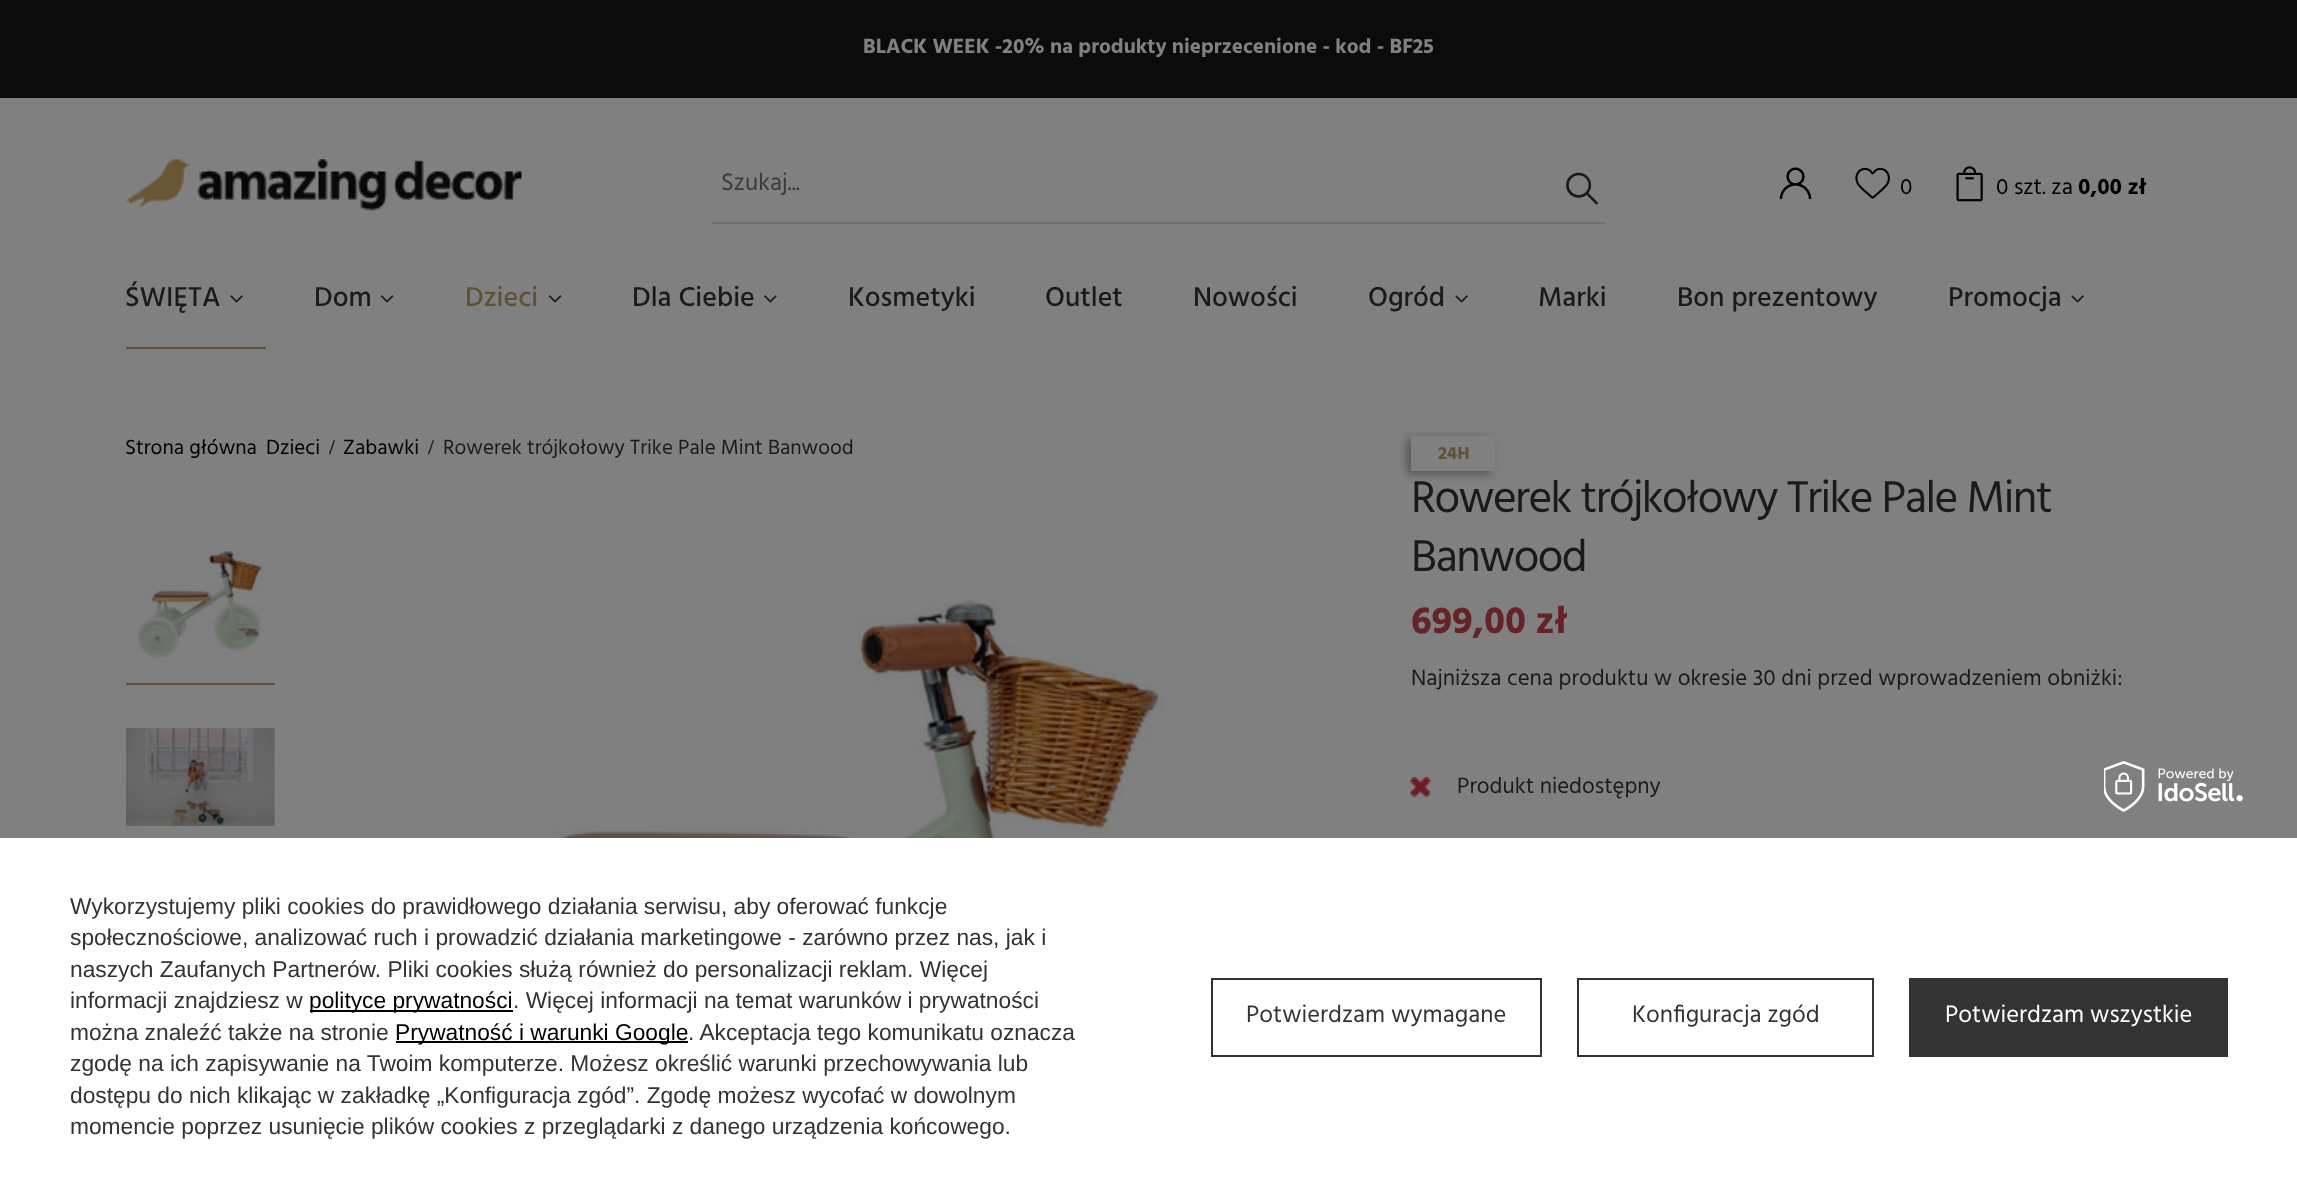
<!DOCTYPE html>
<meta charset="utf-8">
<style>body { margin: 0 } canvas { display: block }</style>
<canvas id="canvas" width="2297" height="1194"></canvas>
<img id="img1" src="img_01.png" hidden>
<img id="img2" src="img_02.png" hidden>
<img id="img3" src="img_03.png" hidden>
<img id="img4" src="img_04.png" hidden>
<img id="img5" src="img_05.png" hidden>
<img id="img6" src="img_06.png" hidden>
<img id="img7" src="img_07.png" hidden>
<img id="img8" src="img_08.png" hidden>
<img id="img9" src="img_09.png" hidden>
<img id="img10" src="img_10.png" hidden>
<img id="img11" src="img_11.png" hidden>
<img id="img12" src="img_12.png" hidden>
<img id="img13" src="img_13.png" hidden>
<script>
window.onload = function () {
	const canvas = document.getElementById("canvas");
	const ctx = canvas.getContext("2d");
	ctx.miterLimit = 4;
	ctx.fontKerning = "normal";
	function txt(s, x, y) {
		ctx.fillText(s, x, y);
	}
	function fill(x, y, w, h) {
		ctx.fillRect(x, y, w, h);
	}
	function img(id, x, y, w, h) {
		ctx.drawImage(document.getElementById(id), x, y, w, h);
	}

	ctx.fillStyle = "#808080";
	fill(0, 0, 2297, 1194);
	ctx.fillStyle = "#0B0B0B";
	fill(2174, 0, 123, 98);
	fill(0, 0, 2174, 98);
	img("img1", 125, 159, 397, 52);
	ctx.fillStyle = "#6F6F6F";
	fill(712, 222, 893, 2);
	img("img2", 1566, 172, 32, 33);
	img("img3", 1779, 167, 33, 32);
	img("img4", 1855, 167, 35, 32);
	img("img5", 1956, 166, 27, 36);
	img("img6", 230, 295, 13, 8);
	img("img7", 380, 295, 14, 8);
	img("img7", 548, 295, 14, 8);
	img("img8", 764, 295, 13, 8);
	img("img6", 1455, 295, 13, 8);
	img("img6", 2071, 295, 13, 8);
	ctx.fillStyle = "#615134";
	fill(126, 347, 140, 2);
	fill(126, 683, 149, 2);
	img("img9", 138, 550, 125, 108);
	img("img10", 126, 728, 149, 98);
	img("img11", 447, 599, 718, 239);
	ctx.fillStyle = "rgba(0, 0, 0, 0.35)";
	ctx.filter = "blur(4.5px)";
	ctx.beginPath();
	ctx.rect(1407, 439, 84, 35);
	ctx.fill();
	ctx.filter = "none";
	ctx.fillStyle = "#808080";
	fill(1411, 436, 84, 35);
	img("img12", 1410, 777, 22, 21);
	ctx.fillStyle = "#FFFFFF";
	fill(0, 838, 2297, 356);
	img("img13", 2104, 761, 139, 51);
	ctx.fillStyle = "#000000";
	fill(310, 1010, 203, 2);
	fill(396, 1041, 292, 2);
	ctx.strokeStyle = "#333333";
	ctx.lineWidth = 2;
	ctx.strokeRect(1212, 979, 329, 77);
	ctx.strokeRect(1578, 979, 295, 77);
	ctx.fillStyle = "#333333";
	fill(1909, 978, 319, 79);
	ctx.font = "bold 21px Hind";
	ctx.fillStyle = "#808080";
	txt("BLACK WEEK -20% na produkty nieprzecenione - kod - BF25", 863, 53);
	ctx.font = "24.5px Hind";
	ctx.fillStyle = "#3B3B3B";
	txt("Szukaj...", 721, 190);
	ctx.font = "22.75px Hind";
	ctx.fillStyle = "#000000";
	txt("0", 1900, 194);
	txt("0 szt. za", 1996, 194);
	ctx.font = "bold 22.75px Hind";
	txt("0,00 zł", 2078, 194);
	ctx.font = "500 28px Hind";
	ctx.fillStyle = "#1A1A1A";
	txt("ŚWIĘTA", 125, 306);
	txt("Dom", 314, 306);
	ctx.fillStyle = "#615134";
	txt("Dzieci", 465, 306);
	ctx.fillStyle = "#1A1A1A";
	txt("Dla Ciebie", 632, 306);
	txt("Kosmetyki", 848, 306);
	txt("Outlet", 1045, 306);
	txt("Nowości", 1193, 306);
	txt("Ogród", 1368, 306);
	txt("Marki", 1538, 306);
	txt("Bon prezentowy", 1677, 306);
	txt("Promocja", 1948, 306);
	ctx.font = "21px Hind";
	ctx.fillStyle = "#000000";
	txt("Strona główna", 125, 454);
	txt("Dzieci", 266, 454);
	ctx.font = "bold 21px Liberation Serif";
	ctx.fillStyle = "#1A1A1A";
	txt("/", 329, 454);
	ctx.font = "21px Hind";
	ctx.fillStyle = "#000000";
	txt("Zabawki", 343, 454);
	ctx.font = "bold 21px Liberation Serif";
	ctx.fillStyle = "#1A1A1A";
	txt("/", 428, 454);
	ctx.font = "21px Hind";
	txt("Rowerek trójkołowy Trike Pale Mint Banwood", 443, 454);
	ctx.font = "bold 18px Hind";
	ctx.fillStyle = "#615134";
	txt("24H", 1438, 459);
	ctx.letterSpacing = "-1.55px";
	ctx.font = "45.5px Hind";
	ctx.fillStyle = "#1A1A1A";
	txt("Rowerek trójkołowy Trike Pale Mint", 1411, 512);
	txt("Banwood", 1411, 571);
	ctx.letterSpacing = "0px";
	ctx.font = "bold 38.5px Hind";
	ctx.fillStyle = "#652227";
	txt("699,00 zł", 1411, 633);
	ctx.font = "22.75px Hind";
	ctx.fillStyle = "#1A1A1A";
	txt("Najniższa cena produktu w okresie 30 dni przed wprowadzeniem obniżki:", 1411, 685);
	txt("Produkt niedostępny", 1457, 793);
	ctx.font = "22.75px Liberation Sans";
	ctx.fillStyle = "#333333";
	txt("Wykorzystujemy pliki cookies do prawidłowego działania serwisu, aby oferować funkcje", 70, 914);
	txt("społecznościowe, analizować ruch i prowadzić działania marketingowe - zarówno przez nas, jak i", 70, 945);
	txt("naszych Zaufanych Partnerów. Pliki cookies służą również do personalizacji reklam. Więcej", 70, 977);
	txt("informacji znajdziesz w", 70, 1008);
	ctx.fillStyle = "#000000";
	txt("polityce prywatności", 309, 1008);
	ctx.fillStyle = "#333333";
	txt(". Więcej informacji na temat warunków i prywatności", 513, 1008);
	txt("można znaleźć także na stronie", 70, 1040);
	ctx.fillStyle = "#000000";
	txt("Prywatność i warunki Google", 395, 1040);
	ctx.fillStyle = "#333333";
	txt(". Akceptacja tego komunikatu oznacza", 688, 1040);
	txt("zgodę na ich zapisywanie na Twoim komputerze. Możesz określić warunki przechowywania lub", 70, 1071);
	txt("dostępu do nich klikając w zakładkę „Konfiguracja zgód”. Zgodę możesz wycofać w dowolnym", 70, 1103);
	txt("momencie poprzez usunięcie plików cookies z przeglądarki z danego urządzenia końcowego.", 70, 1134);
	ctx.font = "24.5px Hind";
	txt("Potwierdzam wymagane", 1246, 1022);
	txt("Konfiguracja zgód", 1632, 1022);
	ctx.fillStyle = "#FFFFFF";
	txt("Potwierdzam wszystkie", 1945, 1022);
};
</script>
